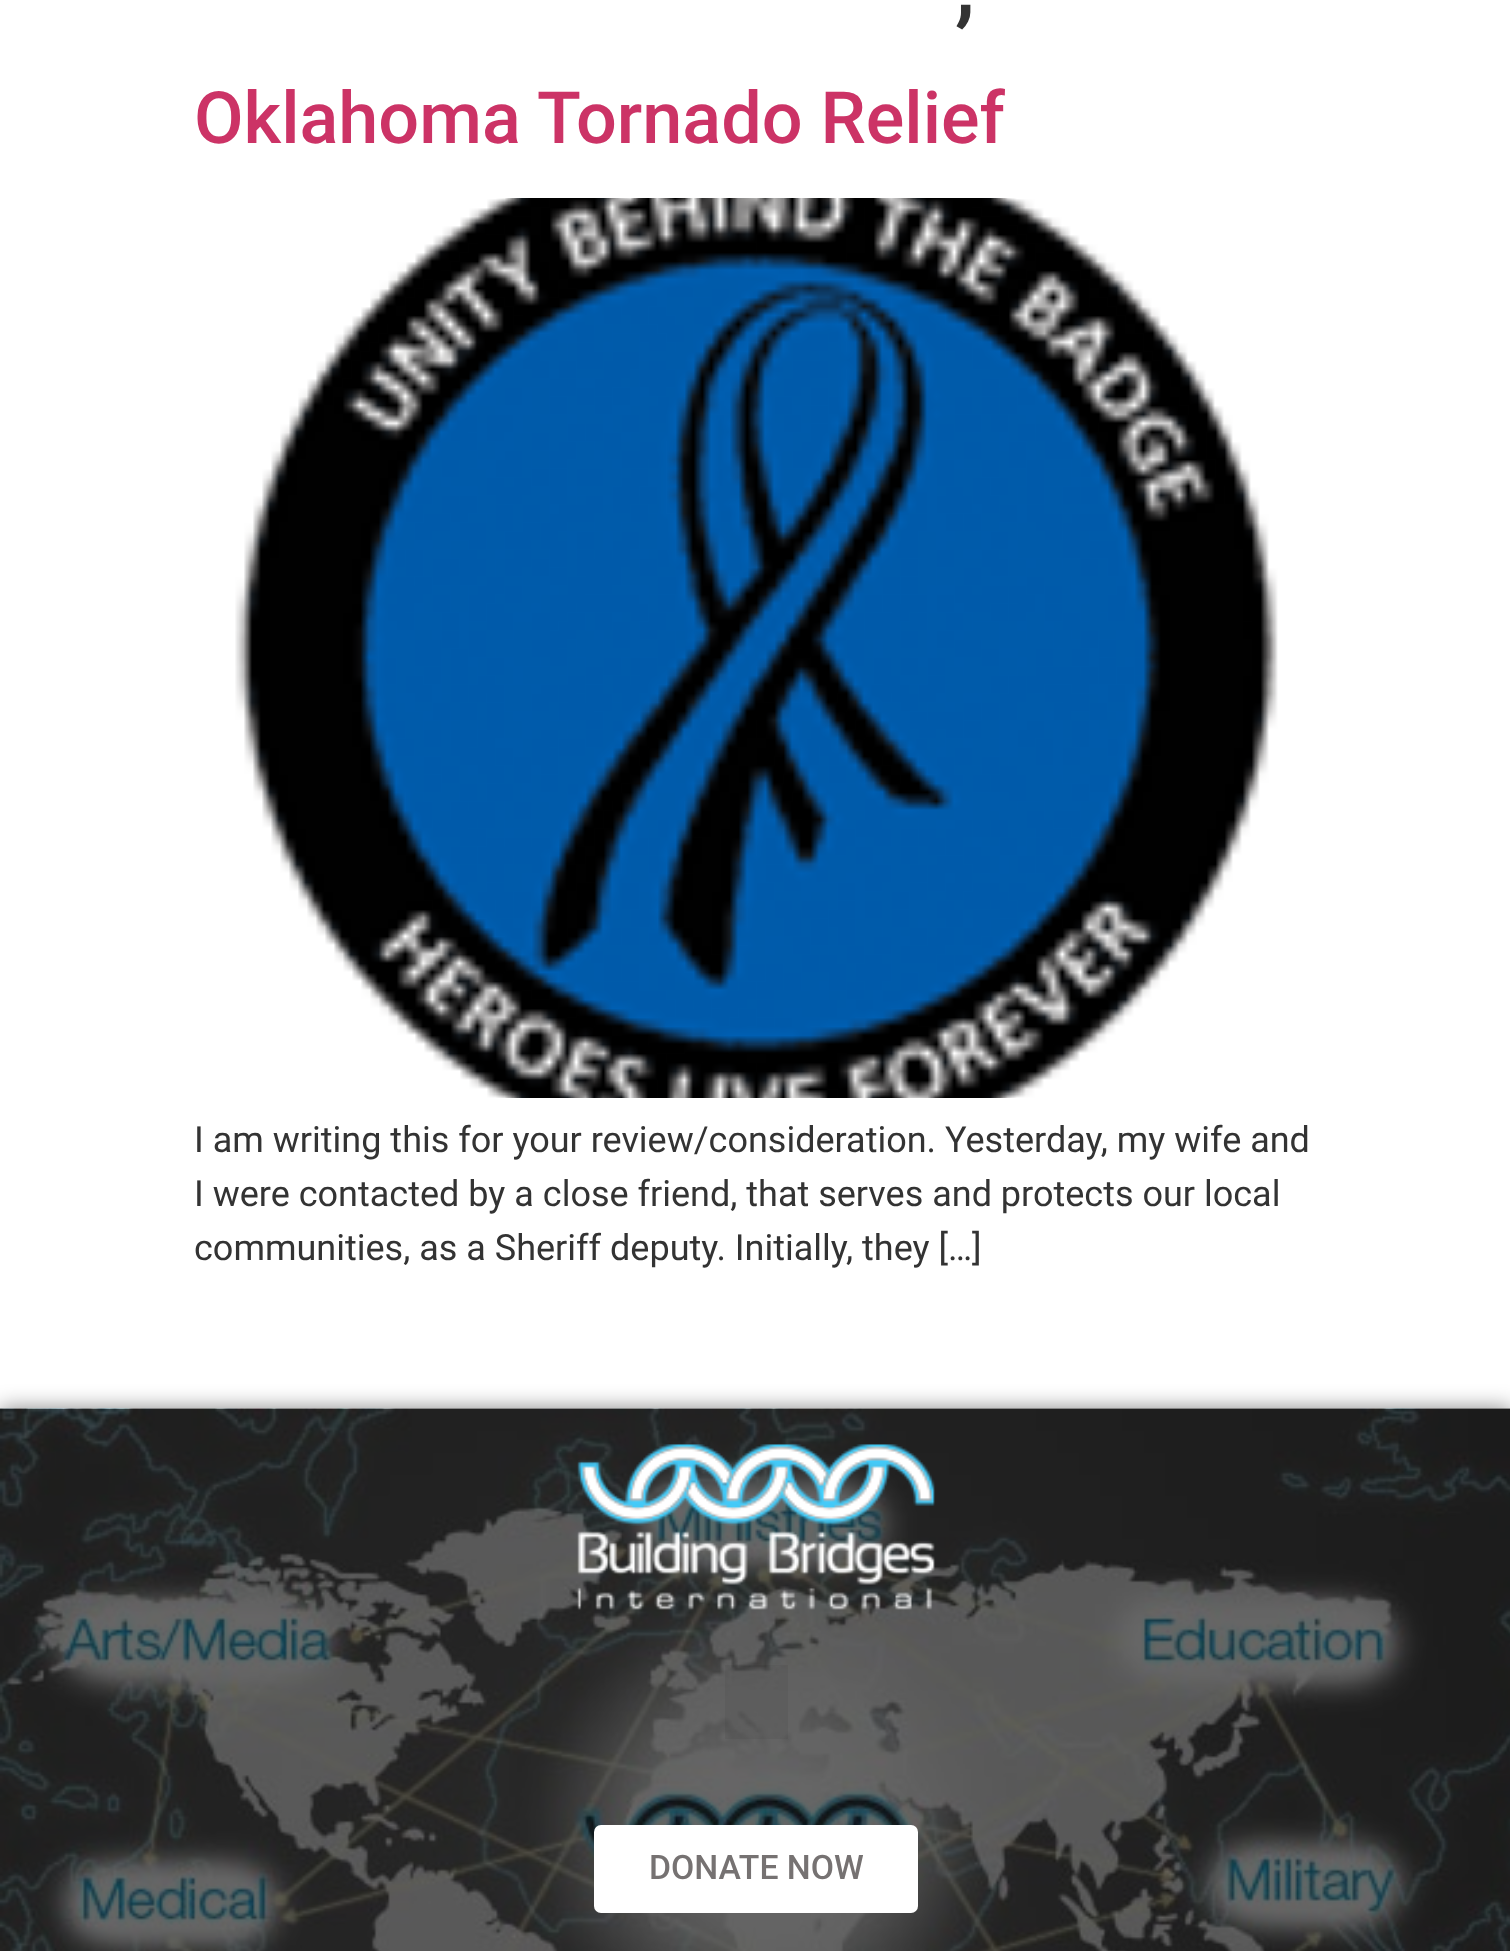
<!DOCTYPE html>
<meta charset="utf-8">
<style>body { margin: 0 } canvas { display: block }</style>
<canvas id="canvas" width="1510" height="1951"></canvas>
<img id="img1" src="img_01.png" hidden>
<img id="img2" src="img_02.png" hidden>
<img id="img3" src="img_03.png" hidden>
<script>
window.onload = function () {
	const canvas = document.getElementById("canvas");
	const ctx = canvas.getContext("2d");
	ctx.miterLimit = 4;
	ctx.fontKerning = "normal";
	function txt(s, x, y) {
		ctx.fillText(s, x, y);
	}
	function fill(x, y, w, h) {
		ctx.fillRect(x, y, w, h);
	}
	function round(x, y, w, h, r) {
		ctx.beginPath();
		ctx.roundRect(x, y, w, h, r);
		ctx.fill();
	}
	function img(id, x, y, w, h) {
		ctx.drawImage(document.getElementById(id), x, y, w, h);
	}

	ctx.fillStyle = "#FFFFFF";
	fill(0, 0, 1510, 1951);
	img("img1", 235, 198, 1043, 900);
	ctx.fillStyle = "rgba(0, 0, 0, 0.5)";
	ctx.filter = "blur(11px)";
	ctx.beginPath();
	ctx.rect(0, 1409, 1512, 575);
	ctx.fill();
	ctx.filter = "none";
	img("img2", 0, 1408, 1510, 543);
	img("img3", 577, 1444, 358, 166);
	ctx.fillStyle = "rgba(0, 0, 0, 0.05)";
	fill(725, 1665, 63, 74);
	ctx.fillStyle = "#FFFFFF";
	round(594, 1825, 324, 88, 7);
	ctx.font = "500 90px Roboto";
	ctx.fillStyle = "#333333";
	txt(",", 955, 15);
	ctx.font = "500 72px Roboto";
	ctx.fillStyle = "#CC3366";
	txt("Oklahoma Tornado Relief", 194, 143);
	ctx.font = "36px Roboto";
	ctx.fillStyle = "#333333";
	txt("I am writing this for your review/consideration. Yesterday, my wife and", 194, 1152);
	txt("I were contacted by a close friend, that serves and protects our local", 194, 1206);
	txt("communities, as a Sheriff deputy. Initially, they […]", 194, 1260);
	ctx.font = "500 33.75px Roboto";
	ctx.fillStyle = "#767272";
	txt("DONATE NOW", 649, 1879);
};
</script>
